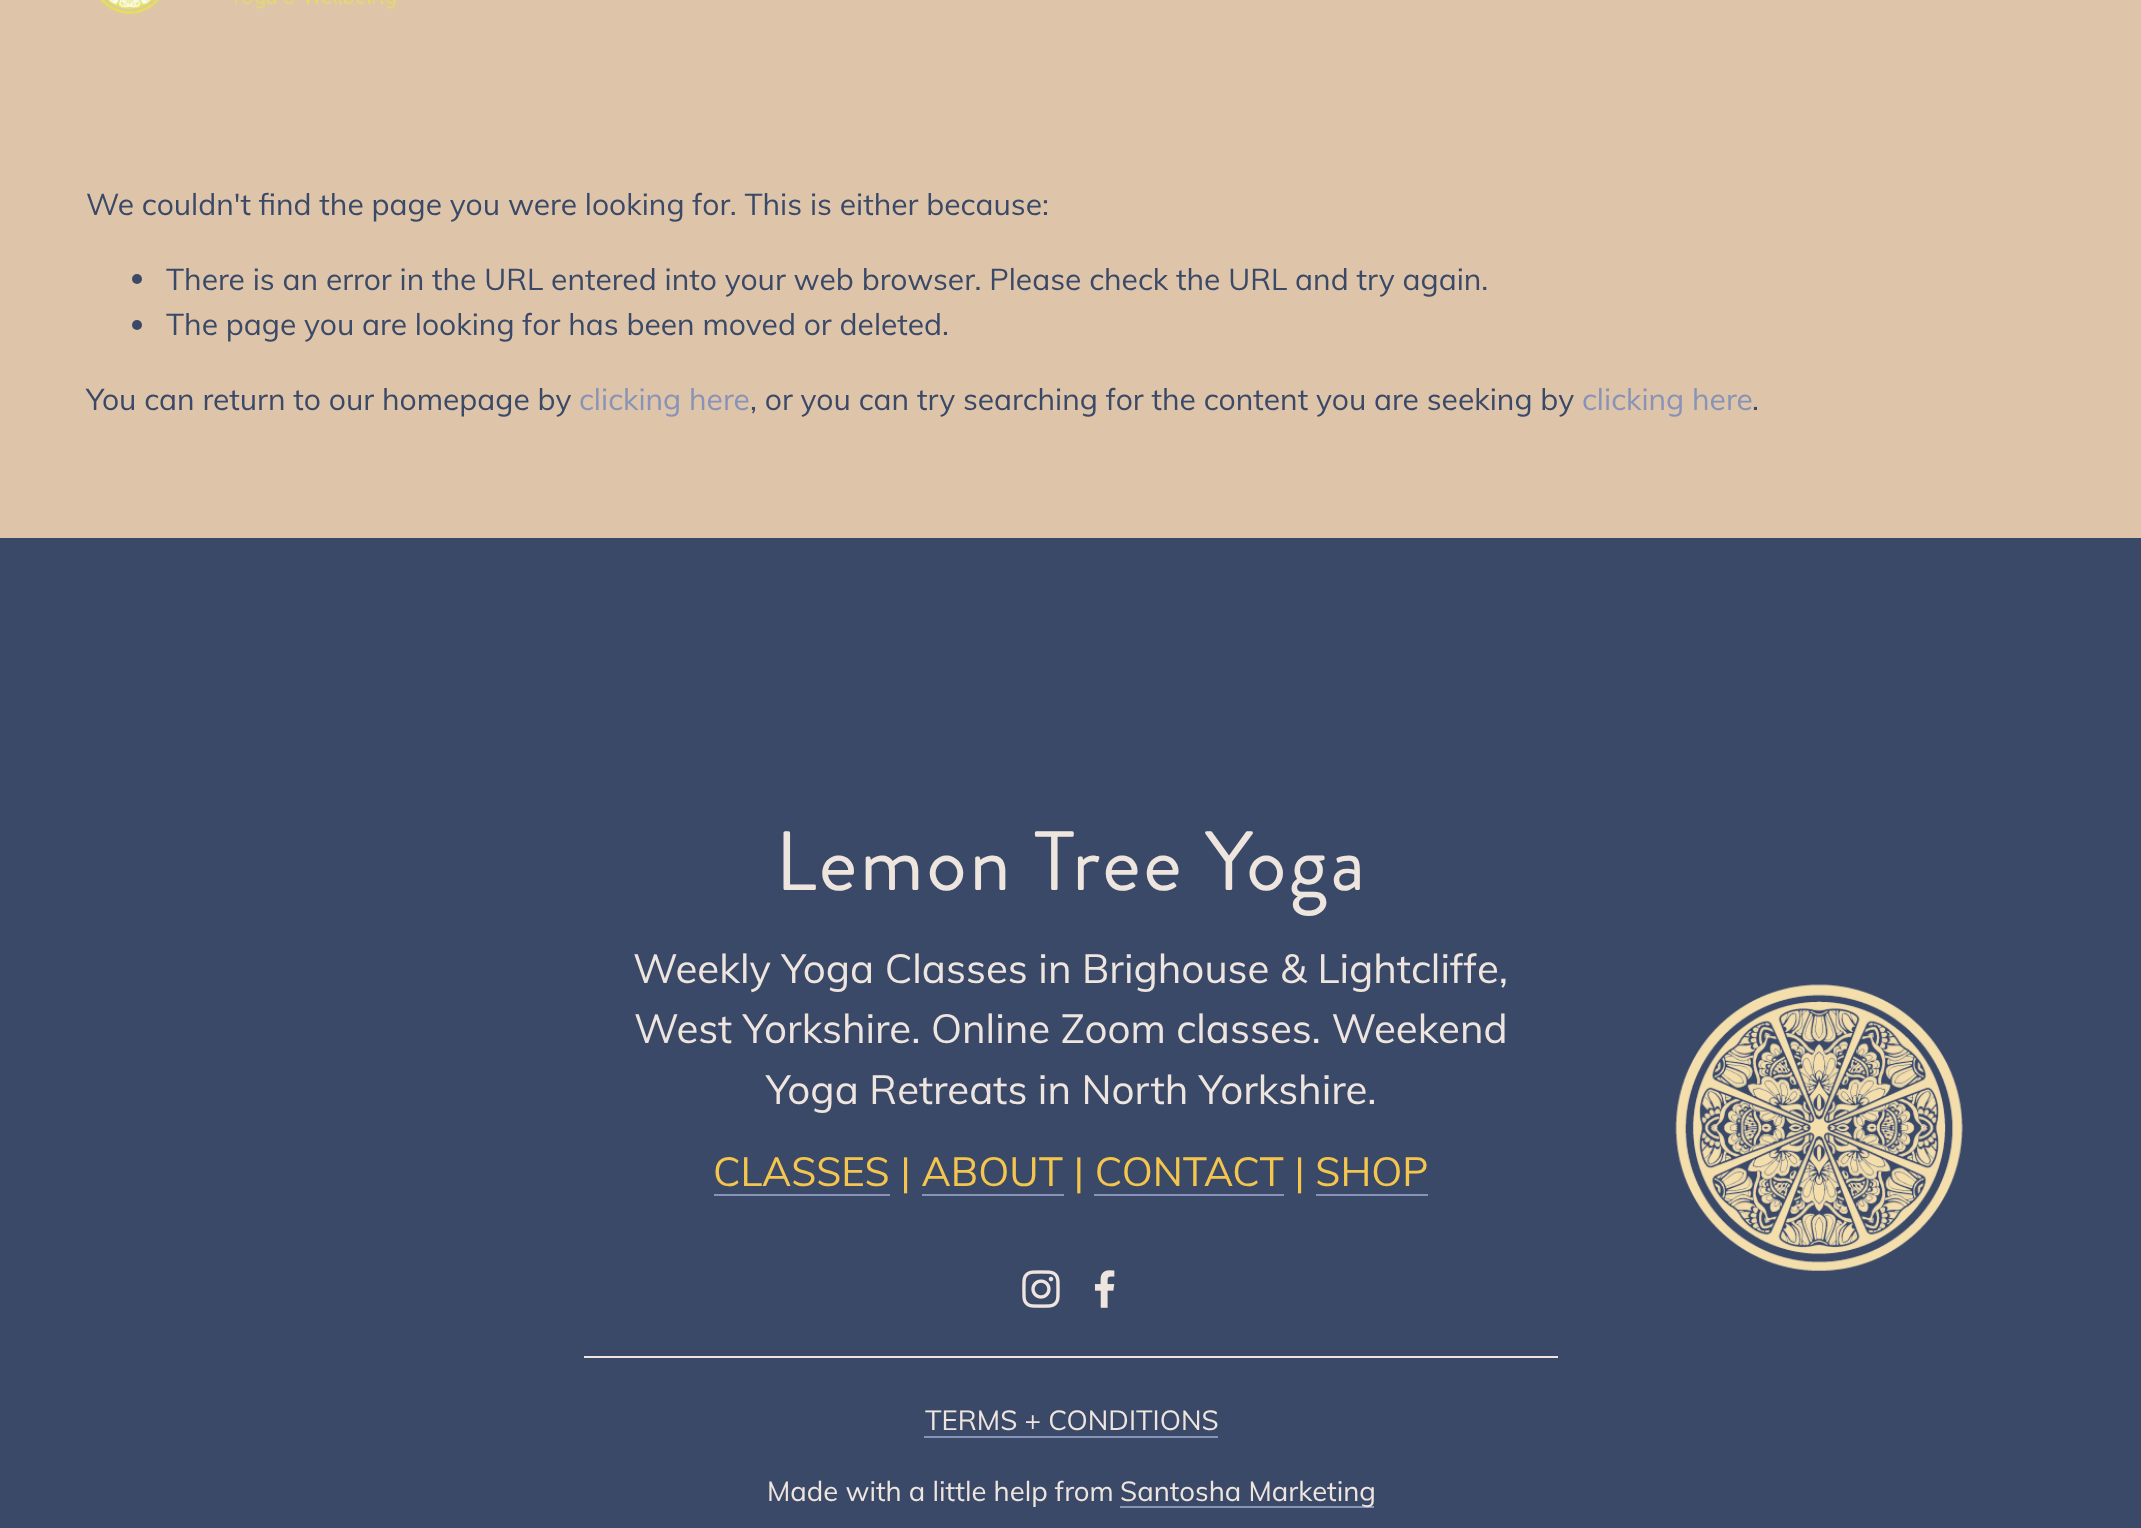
<!DOCTYPE html>
<meta charset="utf-8">
<style>body { margin: 0 } canvas { display: block }</style>
<canvas id="canvas" width="2141" height="1528"></canvas>
<img id="img1" src="img_01.png" hidden>
<img id="img2" src="img_02.png" hidden>
<img id="img3" src="img_03.png" hidden>
<img id="img4" src="img_04.png" hidden>
<script>
window.onload = function () {
	const canvas = document.getElementById("canvas");
	const ctx = canvas.getContext("2d");
	ctx.miterLimit = 4;
	ctx.fontKerning = "normal";
	function txt(s, x, y) {
		ctx.fillText(s, x, y);
	}
	function fill(x, y, w, h) {
		ctx.fillRect(x, y, w, h);
	}
	function img(id, x, y, w, h) {
		ctx.drawImage(document.getElementById(id), x, y, w, h);
	}

	ctx.fillStyle = "#DEC5A9";
	fill(0, 0, 2141, 1528);
	img("img1", 100, 0, 296, 15);
	ctx.fillStyle = "#3B4968";
	ctx.beginPath();
	ctx.arc(137, 279, 5, 0, Math.PI * 2);
	ctx.fill();
	ctx.beginPath();
	ctx.arc(137, 325, 5, 0, Math.PI * 2);
	ctx.fill();
	fill(0, 538, 2141, 990);
	img("img2", 1675, 984, 288, 287);
	ctx.fillStyle = "#8893B7";
	fill(714, 1194, 176, 2);
	fill(922, 1194, 142, 2);
	fill(1094, 1194, 190, 2);
	fill(1316, 1194, 112, 2);
	img("img3", 1022, 1270, 38, 38);
	img("img4", 1094, 1270, 21, 38);
	ctx.fillStyle = "#EEE5DF";
	fill(584, 1356, 974, 2);
	ctx.fillStyle = "#8893B7";
	fill(924, 1436, 294, 2);
	fill(1120, 1506, 254, 2);
	ctx.font = "30px Muli";
	ctx.fillStyle = "#3B4968";
	txt("We couldn't find the page you were looking for. This is either because:", 86, 215);
	txt("There is an error in the URL entered into your web browser. Please check the URL and try again.", 166, 290);
	txt("The page you are looking for has been moved or deleted.", 166, 335);
	txt("You can return to our homepage by", 86, 410);
	ctx.fillStyle = "#8893B7";
	txt("clicking here", 579, 410);
	ctx.fillStyle = "#3B4968";
	txt(", or you can try searching for the content you are seeking by", 750, 410);
	ctx.fillStyle = "#8893B7";
	txt("clicking here", 1582, 410);
	ctx.fillStyle = "#3B4968";
	txt(".", 1752, 410);
	ctx.letterSpacing = "2.5px";
	ctx.font = "84px Brandon Grotesque";
	ctx.fillStyle = "#EEE5DF";
	txt("Lemon Tree Yoga", 775, 890);
	ctx.letterSpacing = "0px";
	ctx.font = "40.25px Muli";
	txt("Weekly Yoga Classes in Brighouse & Lightcliffe,", 633, 983);
	txt("West Yorkshire. Online Zoom classes. Weekend", 634, 1043);
	txt("Yoga Retreats in North Yorkshire.", 766, 1104);
	ctx.fillStyle = "#F5C64D";
	txt("CLASSES | ABOUT | CONTACT | SHOP", 713, 1186);
	ctx.font = "27.5px Muli";
	ctx.fillStyle = "#EEE5DF";
	txt("TERMS + CONDITIONS", 925, 1430);
	txt("Made with a little help from", 767, 1501);
	txt("Santosha Marketing", 1120, 1501);
};
</script>
